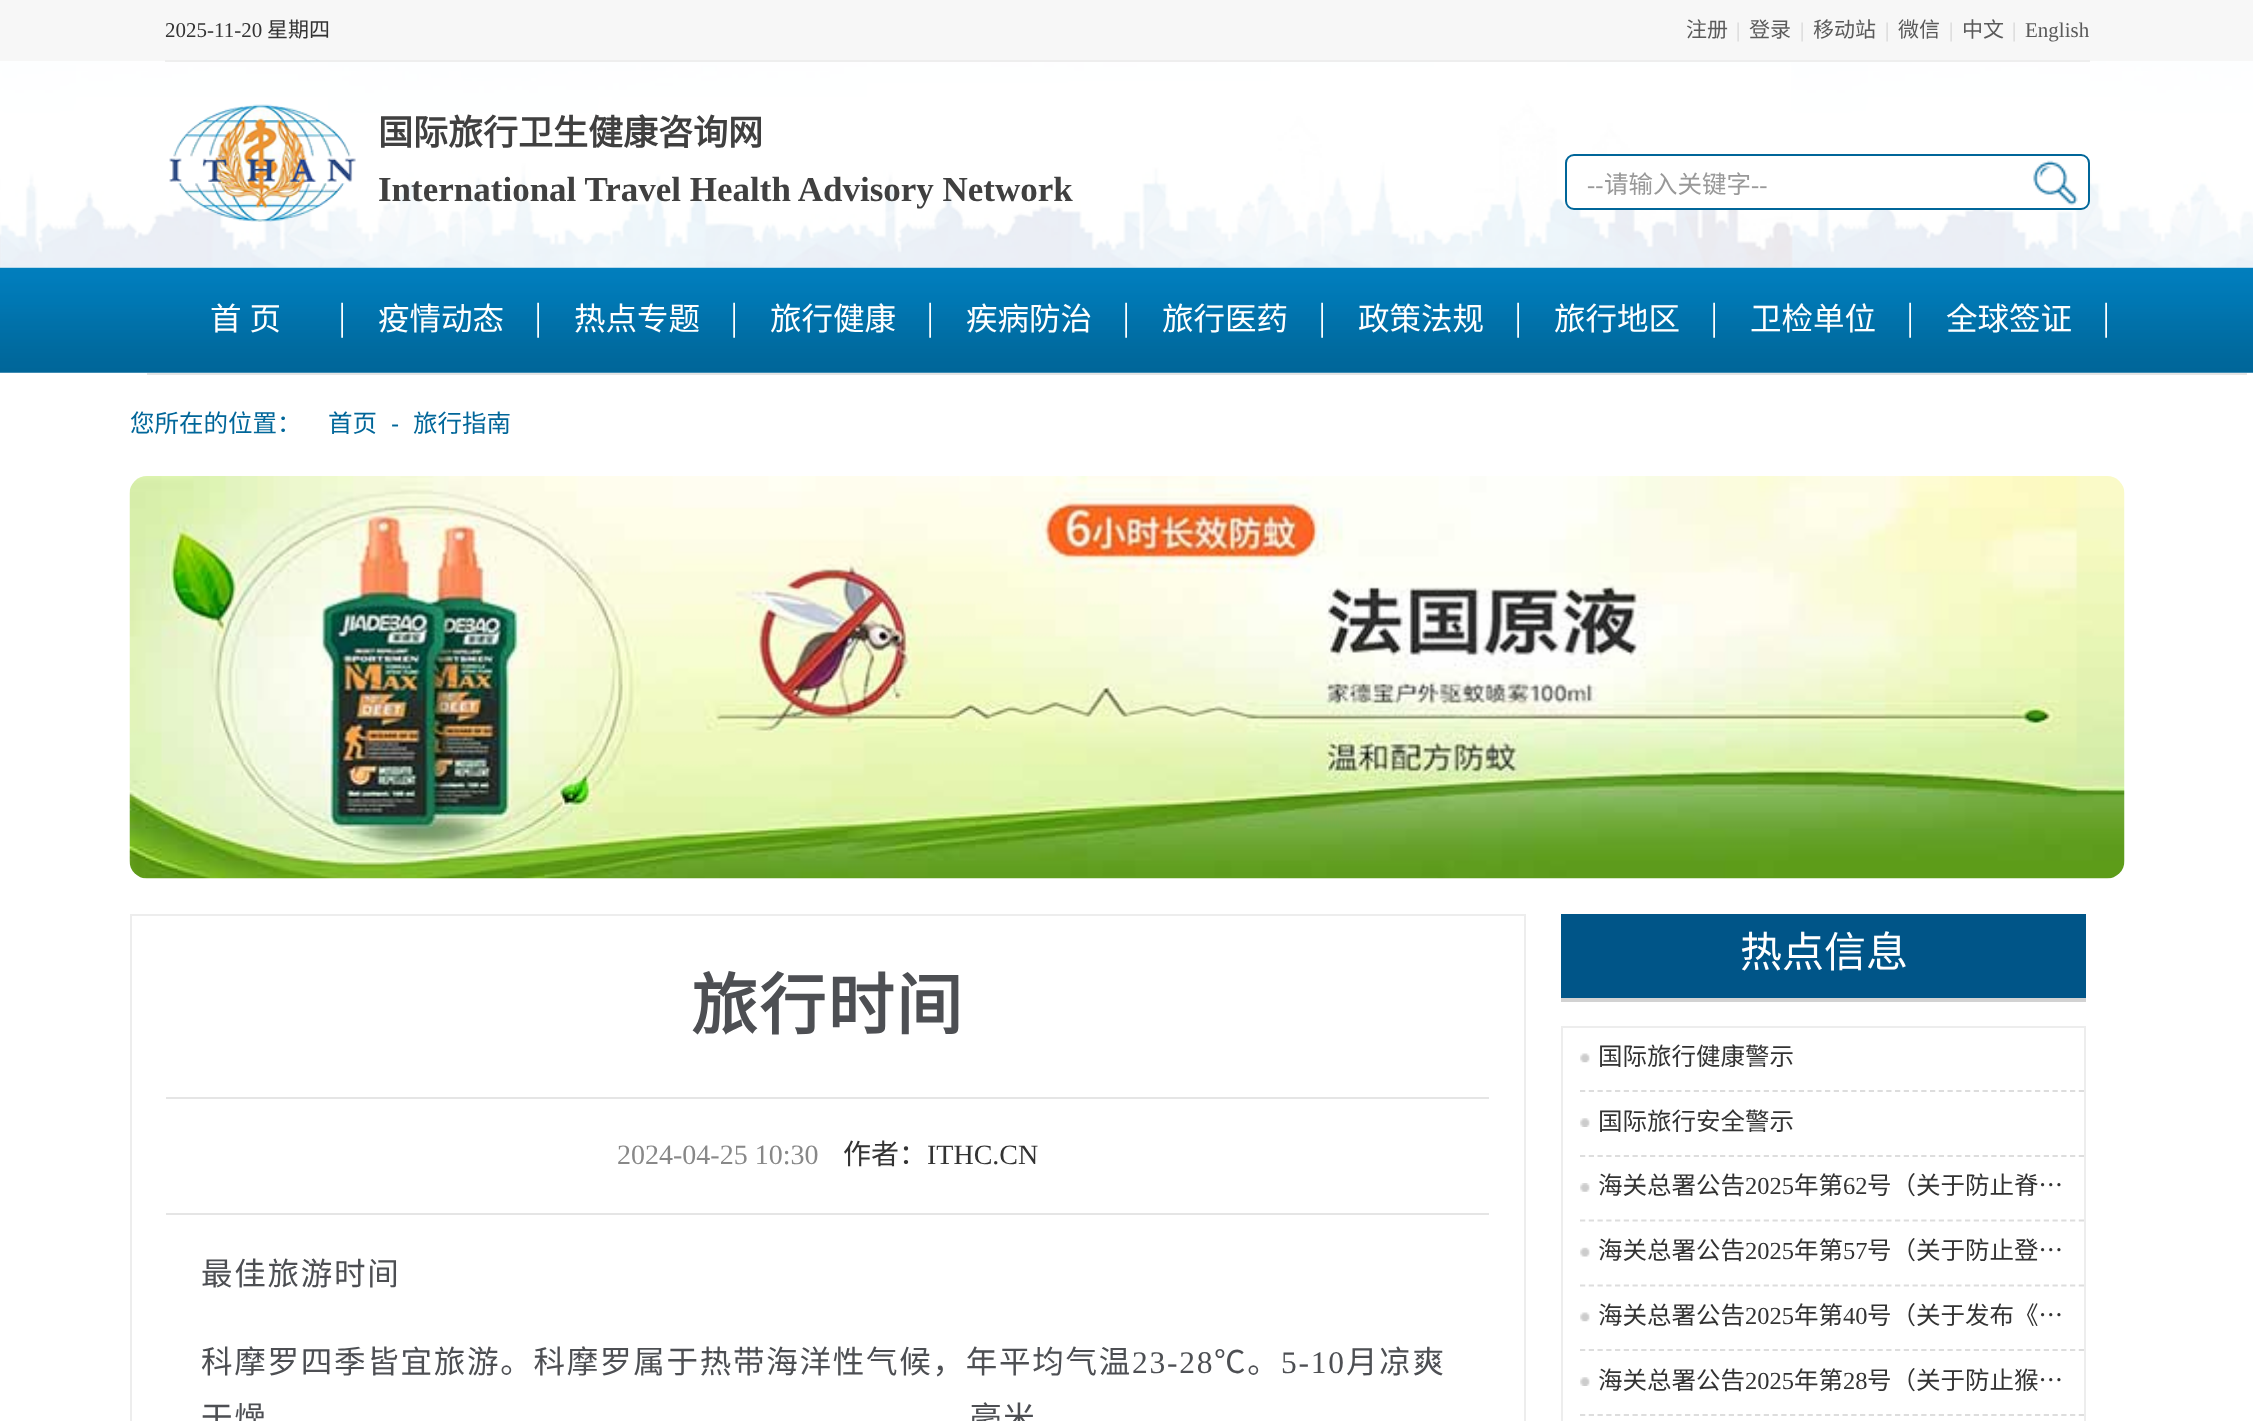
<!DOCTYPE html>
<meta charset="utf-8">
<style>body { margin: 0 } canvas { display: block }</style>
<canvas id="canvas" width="2253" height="1421"></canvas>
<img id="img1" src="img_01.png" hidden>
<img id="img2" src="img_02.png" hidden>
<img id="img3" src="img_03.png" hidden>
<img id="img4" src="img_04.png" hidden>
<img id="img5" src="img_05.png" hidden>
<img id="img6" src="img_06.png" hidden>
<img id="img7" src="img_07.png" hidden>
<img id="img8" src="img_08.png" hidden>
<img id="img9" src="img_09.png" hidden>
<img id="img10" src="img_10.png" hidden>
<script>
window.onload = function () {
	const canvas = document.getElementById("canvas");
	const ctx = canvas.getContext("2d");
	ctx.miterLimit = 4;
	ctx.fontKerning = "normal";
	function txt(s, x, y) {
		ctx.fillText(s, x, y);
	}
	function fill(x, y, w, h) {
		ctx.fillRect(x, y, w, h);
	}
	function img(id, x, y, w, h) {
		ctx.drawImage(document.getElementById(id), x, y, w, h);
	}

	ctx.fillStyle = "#FFFFFF";
	fill(0, 0, 2253, 1421);
	img("img1", 0, 61, 2253, 207);
	ctx.fillStyle = "#F7F7F7";
	fill(0, 0, 2253, 61);
	ctx.fillStyle = "#EEEEEE";
	fill(165, 60, 1925, 2);
	img("img2", 169, 104, 187, 118);
	ctx.fillStyle = "#FFFFFF";
	ctx.beginPath();
	ctx.roundRect(1566, 155, 523, 54, 8);
	ctx.fill();
	ctx.strokeStyle = "#006699";
	ctx.lineWidth = 2;
	ctx.stroke();
	img("img3", 2033, 160, 45, 46);
	img("img4", 0, 267, 2253, 106);
	ctx.fillStyle = "#E5E5E5";
	fill(147, 373, 2100, 2);
	img("img5", 341, 302, 2, 36);
	img("img5", 537, 302, 2, 36);
	img("img5", 733, 302, 2, 36);
	img("img5", 929, 302, 2, 36);
	img("img5", 1125, 302, 2, 36);
	img("img5", 1321, 302, 2, 36);
	img("img5", 1517, 302, 2, 36);
	img("img5", 1713, 302, 2, 36);
	img("img5", 1909, 302, 2, 36);
	img("img5", 2105, 302, 2, 36);
	img("img6", 129, 476, 1996, 403);
	ctx.strokeStyle = "#EDEDED";
	ctx.strokeRect(131, 915, 1394, 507);
	fill(166, 1097, 1323, 2);
	fill(166, 1213, 1323, 2);
	ctx.fillStyle = "#005588";
	fill(1561, 914, 525, 84);
	ctx.fillStyle = "#D2D2D2";
	fill(1561, 998, 525, 4);
	ctx.strokeRect(1562, 1027, 523, 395);
	img("img7", 1580, 1053, 10, 10);
	ctx.beginPath();
	ctx.moveTo(1580, 1091);
	ctx.lineTo(2084, 1091);
	ctx.strokeStyle = "#DDDDDD";
	ctx.lineWidth = 1.8;
	ctx.setLineDash([5.25, 3.5]);
	ctx.stroke();
	img("img8", 1580, 1118, 10, 9);
	ctx.beginPath();
	ctx.moveTo(1580, 1156);
	ctx.lineTo(2084, 1156);
	ctx.stroke();
	img("img9", 1580, 1183, 10, 9);
	ctx.beginPath();
	ctx.moveTo(1580, 1220.5);
	ctx.lineTo(2084, 1220.5);
	ctx.stroke();
	img("img10", 1580, 1247, 10, 10);
	ctx.beginPath();
	ctx.moveTo(1580, 1285.5);
	ctx.lineTo(2084, 1285.5);
	ctx.stroke();
	img("img7", 1580, 1312, 10, 10);
	ctx.beginPath();
	ctx.moveTo(1580, 1350);
	ctx.lineTo(2084, 1350);
	ctx.stroke();
	img("img8", 1580, 1377, 10, 9);
	ctx.beginPath();
	ctx.moveTo(1580, 1415);
	ctx.lineTo(2084, 1415);
	ctx.stroke();
	ctx.font = "21px Liberation Serif";
	ctx.fillStyle = "#333333";
	txt("2025-11-20", 165, 37);
	ctx.font = "21px Noto Sans CJK SC";
	txt("星期四", 267, 37);
	ctx.fillStyle = "#5A5A5A";
	txt("注册", 1686, 37);
	ctx.font = "21px Liberation Serif";
	ctx.fillStyle = "#D3D3D3";
	txt("|", 1736, 37);
	ctx.font = "21px Noto Sans CJK SC";
	ctx.fillStyle = "#5A5A5A";
	txt("登录", 1749, 37);
	ctx.font = "21px Liberation Serif";
	ctx.fillStyle = "#D3D3D3";
	txt("|", 1800, 37);
	ctx.font = "21px Noto Sans CJK SC";
	ctx.fillStyle = "#5A5A5A";
	txt("移动站", 1813, 37);
	ctx.font = "21px Liberation Serif";
	ctx.fillStyle = "#D3D3D3";
	txt("|", 1885, 37);
	ctx.font = "21px Noto Sans CJK SC";
	ctx.fillStyle = "#5A5A5A";
	txt("微信", 1898, 37);
	ctx.font = "21px Liberation Serif";
	ctx.fillStyle = "#D3D3D3";
	txt("|", 1949, 37);
	ctx.font = "21px Noto Sans CJK SC";
	ctx.fillStyle = "#5A5A5A";
	txt("中文", 1962, 37);
	ctx.font = "21px Liberation Serif";
	ctx.fillStyle = "#D3D3D3";
	txt("|", 2012, 37);
	ctx.fillStyle = "#5A5A5A";
	txt("English", 2025, 37);
	ctx.font = "bold 35px Noto Sans CJK SC";
	ctx.fillStyle = "#404040";
	txt("国际旅行卫生健康咨询网", 378, 145);
	ctx.font = "bold 35px Liberation Serif";
	txt("International Travel Health Advisory Network", 378, 201);
	ctx.font = "24.5px Liberation Serif";
	ctx.fillStyle = "#999999";
	txt("--", 1587, 193);
	ctx.font = "24.5px Noto Sans CJK SC";
	txt("请输入关键字", 1604, 193);
	ctx.font = "24.5px Liberation Serif";
	txt("--", 1751, 193);
	ctx.wordSpacing = "1px";
	ctx.font = "31.5px Noto Sans CJK SC";
	ctx.fillStyle = "#FFFFFF";
	txt("首 页", 210, 330);
	ctx.wordSpacing = "0px";
	txt("疫情动态", 378, 330);
	txt("热点专题", 574, 330);
	txt("旅行健康", 770, 330);
	txt("疾病防治", 966, 330);
	txt("旅行医药", 1162, 330);
	txt("政策法规", 1358, 330);
	txt("旅行地区", 1554, 330);
	txt("卫检单位", 1750, 330);
	txt("全球签证", 1946, 330);
	ctx.font = "24.5px Noto Sans CJK SC";
	ctx.fillStyle = "#006699";
	txt("您所在的位置：", 130, 432);
	txt("首页", 328, 432);
	ctx.font = "24.5px Liberation Sans";
	txt("‐", 391, 432);
	ctx.font = "24.5px Noto Sans CJK SC";
	txt("旅行指南", 413, 432);
	ctx.letterSpacing = "1.75px";
	ctx.font = "bold 66.5px Noto Sans CJK SC";
	ctx.fillStyle = "#4D4F53";
	txt("旅行时间", 691, 1029);
	ctx.letterSpacing = "0px";
	ctx.font = "28px Liberation Serif";
	ctx.fillStyle = "#888888";
	txt("2024-04-25 10:30", 617, 1164);
	ctx.font = "28px Noto Sans CJK SC";
	ctx.fillStyle = "#333333";
	txt("作者：", 843, 1164);
	ctx.font = "28px Liberation Serif";
	txt("ITHC.CN", 927, 1164);
	ctx.letterSpacing = "1.75px";
	ctx.font = "31.5px Noto Sans CJK SC";
	ctx.fillStyle = "#4D4F53";
	txt("最佳旅游时间", 201, 1285);
	txt("科摩罗四季皆宜旅游。科摩罗属于热带海洋性气候，年平均气温", 201, 1373);
	ctx.font = "31.5px Liberation Serif";
	txt("23-28", 1132, 1373);
	ctx.font = "31.5px Noto Sans CJK SC";
	txt("℃。", 1214, 1373);
	ctx.font = "31.5px Liberation Serif";
	txt("5-10", 1281, 1373);
	ctx.font = "31.5px Noto Sans CJK SC";
	txt("月凉爽", 1346, 1373);
	txt("干燥", 201, 1429);
	txt("毫米", 970, 1429);
	ctx.letterSpacing = "0px";
	ctx.font = "42px Noto Sans CJK SC";
	ctx.fillStyle = "#FFFFFF";
	txt("热点信息", 1740, 967);
	ctx.font = "24.5px Noto Sans CJK SC";
	ctx.fillStyle = "#333333";
	txt("国际旅行健康警示", 1598, 1065);
	txt("国际旅行安全警示", 1598, 1130);
	txt("海关总署公告", 1598, 1194);
	ctx.font = "24.5px Liberation Serif";
	txt("2025", 1745, 1194);
	ctx.font = "24.5px Noto Sans CJK SC";
	txt("年第", 1794, 1194);
	ctx.font = "24.5px Liberation Serif";
	txt("62", 1843, 1194);
	ctx.font = "24.5px Noto Sans CJK SC";
	txt("号（关于防止脊…", 1867, 1194);
	txt("海关总署公告", 1598, 1259);
	ctx.font = "24.5px Liberation Serif";
	txt("2025", 1745, 1259);
	ctx.font = "24.5px Noto Sans CJK SC";
	txt("年第", 1794, 1259);
	ctx.font = "24.5px Liberation Serif";
	txt("57", 1843, 1259);
	ctx.font = "24.5px Noto Sans CJK SC";
	txt("号（关于防止登…", 1867, 1259);
	txt("海关总署公告", 1598, 1324);
	ctx.font = "24.5px Liberation Serif";
	txt("2025", 1745, 1324);
	ctx.font = "24.5px Noto Sans CJK SC";
	txt("年第", 1794, 1324);
	ctx.font = "24.5px Liberation Serif";
	txt("40", 1843, 1324);
	ctx.font = "24.5px Noto Sans CJK SC";
	txt("号（关于发布《…", 1867, 1324);
	txt("海关总署公告", 1598, 1389);
	ctx.font = "24.5px Liberation Serif";
	txt("2025", 1745, 1389);
	ctx.font = "24.5px Noto Sans CJK SC";
	txt("年第", 1794, 1389);
	ctx.font = "24.5px Liberation Serif";
	txt("28", 1843, 1389);
	ctx.font = "24.5px Noto Sans CJK SC";
	txt("号（关于防止猴…", 1867, 1389);
};
</script>
